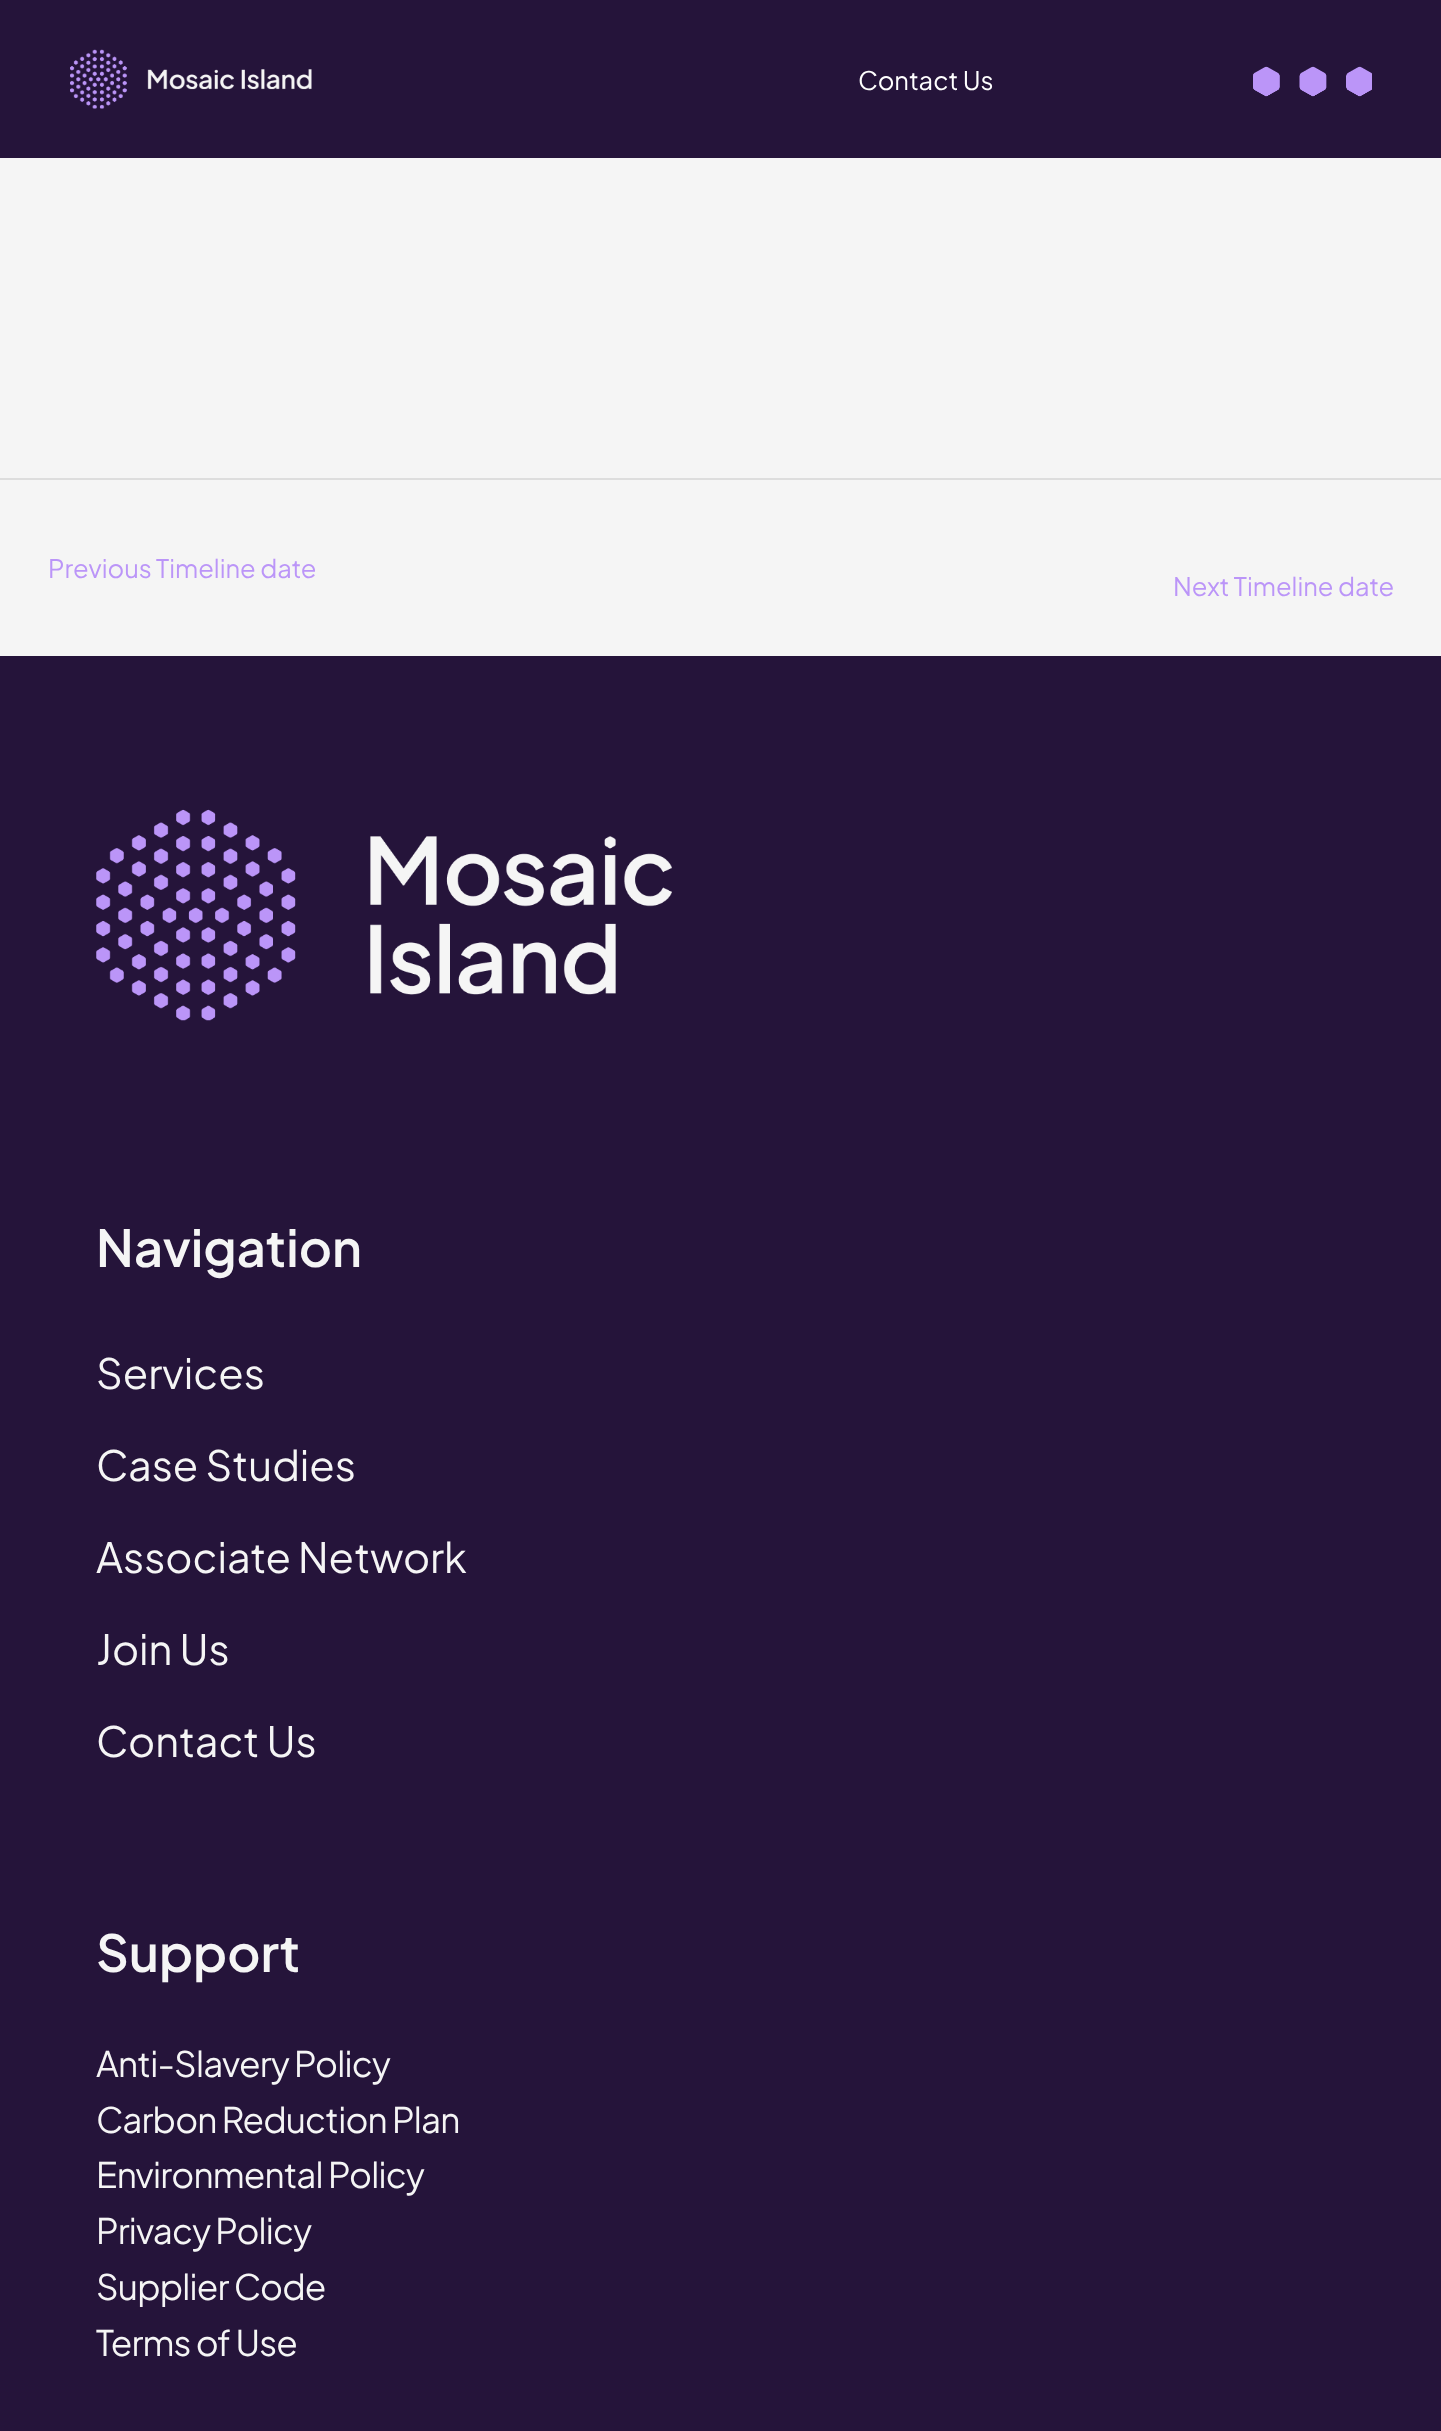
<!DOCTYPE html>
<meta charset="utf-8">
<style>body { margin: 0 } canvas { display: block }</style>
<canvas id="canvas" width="1441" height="2431"></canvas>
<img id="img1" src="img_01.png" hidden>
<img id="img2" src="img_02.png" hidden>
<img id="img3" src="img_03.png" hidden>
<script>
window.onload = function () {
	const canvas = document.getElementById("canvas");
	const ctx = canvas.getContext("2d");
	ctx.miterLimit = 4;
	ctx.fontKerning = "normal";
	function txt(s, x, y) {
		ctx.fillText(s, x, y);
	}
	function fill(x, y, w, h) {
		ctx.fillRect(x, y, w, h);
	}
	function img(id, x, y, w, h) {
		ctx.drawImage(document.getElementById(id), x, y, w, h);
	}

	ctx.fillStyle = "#F5F5F5";
	fill(0, 0, 1441, 2431);
	ctx.fillStyle = "#25143A";
	fill(0, 0, 1441, 158);
	img("img1", 70, 49, 242, 60);
	img("img2", 1253, 66, 119, 31);
	ctx.fillStyle = "#DDDDDD";
	fill(0, 478, 1441, 2);
	ctx.fillStyle = "#25143A";
	fill(0, 656, 1441, 1775);
	img("img3", 96, 809, 576, 212);
	ctx.font = "25.5px Plus Jakarta Sans";
	ctx.fillStyle = "#FFFFFF";
	txt("Contact Us", 858, 90);
	ctx.fillStyle = "#BB95F8";
	txt("Previous Timeline date", 48, 578);
	txt("Next Timeline date", 1173, 596);
	ctx.font = "600 51px Plus Jakarta Sans";
	ctx.fillStyle = "#F5F5F5";
	txt("Navigation", 96, 1267);
	ctx.font = "41.5px Plus Jakarta Sans";
	txt("Services", 96, 1389);
	txt("Case Studies", 96, 1481);
	txt("Associate Network", 96, 1573);
	txt("Join Us", 96, 1665);
	txt("Contact Us", 96, 1757);
	ctx.font = "600 51px Plus Jakarta Sans";
	txt("Support", 96, 1972);
	ctx.letterSpacing = "-0.8px";
	ctx.font = "35.1px Plus Jakarta Sans";
	txt("Anti-Slavery Policy", 96, 2077);
	txt("Carbon Reduction Plan", 96, 2133);
	txt("Environmental Policy", 96, 2188);
	txt("Privacy Policy", 96, 2244);
	txt("Supplier Code", 96, 2300);
	txt("Terms of Use", 96, 2356);
};
</script>
